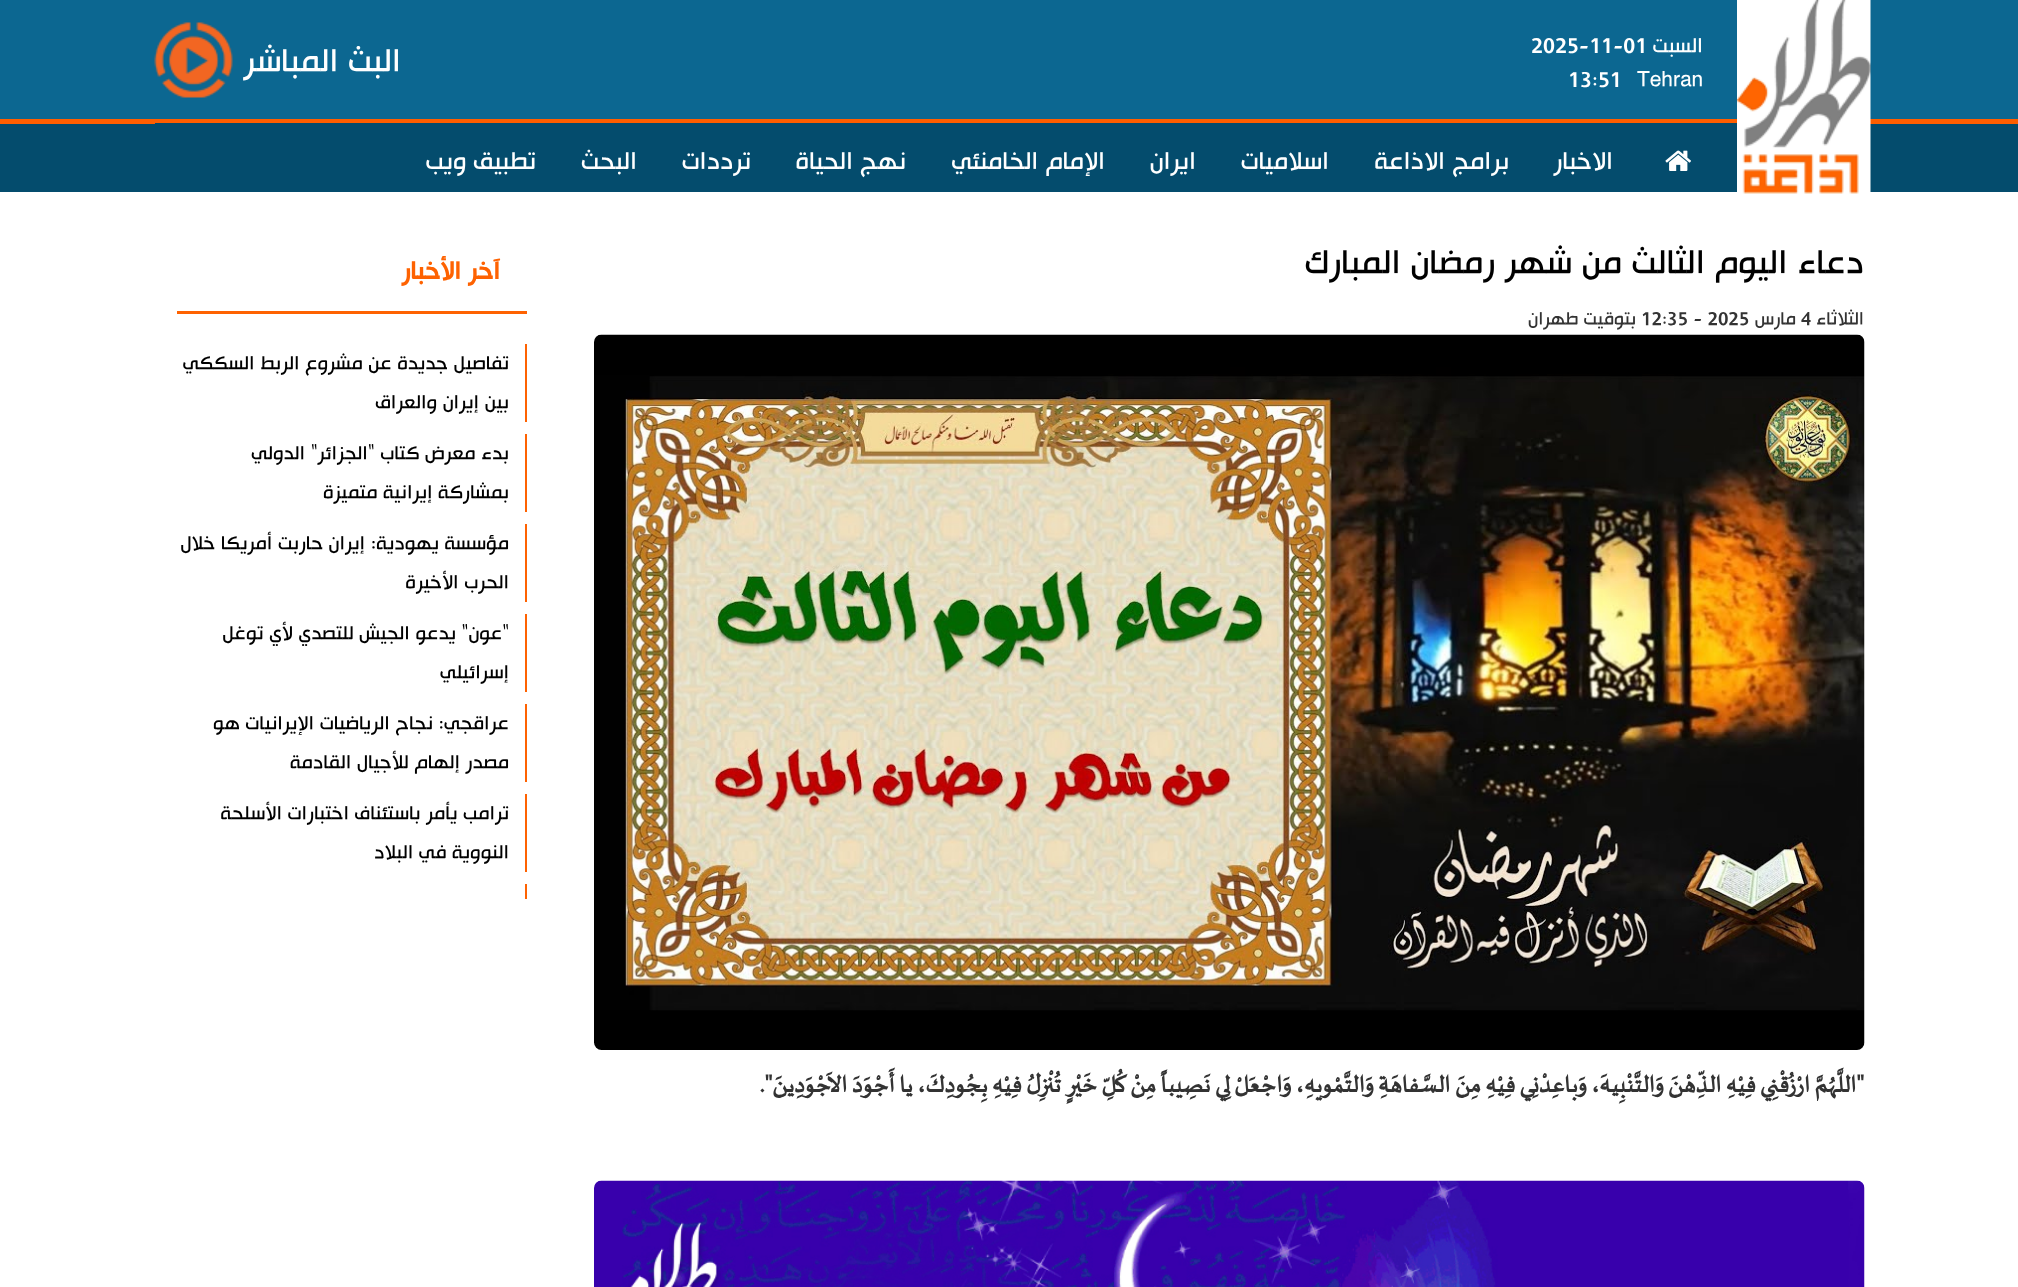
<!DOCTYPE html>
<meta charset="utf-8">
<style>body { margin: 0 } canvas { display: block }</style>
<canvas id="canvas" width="2018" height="1287"></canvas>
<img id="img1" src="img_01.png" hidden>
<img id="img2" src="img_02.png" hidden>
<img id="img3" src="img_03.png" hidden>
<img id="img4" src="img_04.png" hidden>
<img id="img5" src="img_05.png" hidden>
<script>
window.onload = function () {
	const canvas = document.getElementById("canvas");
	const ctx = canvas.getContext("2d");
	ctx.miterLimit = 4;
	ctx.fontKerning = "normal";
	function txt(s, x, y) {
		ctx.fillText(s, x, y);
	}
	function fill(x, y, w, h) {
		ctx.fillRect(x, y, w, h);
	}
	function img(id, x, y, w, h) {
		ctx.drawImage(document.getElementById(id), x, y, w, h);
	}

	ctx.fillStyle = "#FFFFFF";
	fill(0, 0, 2018, 1287);
	ctx.fillStyle = "#0C6791";
	fill(0, 0, 2018, 119);
	ctx.fillStyle = "#044C6D";
	fill(0, 124, 2018, 68);
	ctx.fillStyle = "#FF5E00";
	fill(0, 119, 2018, 5);
	img("img1", 1737, 0, 134, 194);
	img("img2", 154, 22, 79, 76);
	ctx.fillStyle = "#044C6D";
	fill(155, 123, 1582, 1);
	img("img3", 1665, 150, 26, 21);
	img("img4", 594, 334, 1271, 716);
	img("img5", 594, 1180, 1271, 107);
	ctx.fillStyle = "#FE6201";
	fill(177, 311, 350, 3);
	fill(525, 344, 2, 78);
	fill(525, 434, 2, 78);
	fill(525, 524, 2, 78);
	fill(525, 614, 2, 78);
	fill(525, 704, 2, 78);
	fill(525, 794, 2, 78);
	fill(525, 884, 2, 15);
	ctx.direction = "rtl";
	ctx.font = "24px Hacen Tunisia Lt";
	ctx.fillStyle = "#FFFFFF";
	txt("السبت", 1703, 54);
	ctx.direction = "ltr";
	txt("2025-11-01", 1531, 54);
	txt("Tehran", 1637, 88);
	txt("13:51", 1568, 88);
	ctx.direction = "rtl";
	ctx.font = "37.5px Hacen Tunisia Lt";
	txt("البث المباشر", 401, 74);
	ctx.font = "28.5px Hacen Tunisia Lt";
	txt("الاخبار", 1613, 171);
	txt("برامج الاذاعة", 1509, 171);
	txt("اسلاميات", 1329, 171);
	txt("ايران", 1196, 171);
	txt("الإمام الخامنئي", 1105, 171);
	txt("نهج الحياة", 906, 171);
	txt("ترددات", 751, 171);
	txt("البحث", 637, 171);
	txt("تطبيق ويب", 536, 171);
	ctx.font = "39px Hacen Tunisia Lt";
	ctx.fillStyle = "#000000";
	txt("دعاء اليوم الثالث من شهر رمضان المبارك", 1864, 276);
	ctx.font = "21px Hacen Tunisia Lt";
	ctx.fillStyle = "#333333";
	txt("الثلاثاء", 1864, 326);
	ctx.direction = "ltr";
	txt("4", 1801, 326);
	ctx.direction = "rtl";
	txt("مارس", 1796, 326);
	ctx.direction = "ltr";
	txt("12:35 - 2025", 1641, 326);
	ctx.direction = "rtl";
	txt("بتوقيت طهران", 1636, 326);
	ctx.font = "bold 30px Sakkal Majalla";
	txt("\"اللَّهُمَّ ارْزُقْنِي فِيْهِ الذِّهْنَ وَالتَّنْبِيهَ، وَباعِدْنِي فِيْهِ مِنَ السَّفاهَةِ وَالتَّمْويهِ، وَاجْعَلْ لِي نَصِيباً مِنْ كُلِّ خَيْرٍ تُنْزِلُ فِيْهِ بِجُودِكَ، يا أَجْوَدَ الاَجْوَدِينَ\".", 1864, 1092);
	ctx.font = "bold 28.5px Hacen Tunisia Lt";
	ctx.fillStyle = "#FE6201";
	txt("آخر الأخبار", 500, 281);
	ctx.font = "22.5px Hacen Tunisia Lt";
	ctx.fillStyle = "#000000";
	txt("تفاصيل جديدة عن مشروع الربط السككي", 509, 371);
	txt("بين إيران والعراق", 509, 410);
	txt("بدء معرض كتاب \"الجزائر\" الدولي", 509, 461);
	txt("بمشاركة إيرانية متميزة", 509, 500);
	txt("مؤسسة يهودية: إيران حاربت أمريكا خلال", 509, 551);
	txt("الحرب الأخيرة", 509, 590);
	txt("\"عون\" يدعو الجيش للتصدي لأي توغل", 509, 641);
	txt("إسرائيلي", 509, 680);
	txt("عراقجي: نجاح الرياضيات الإيرانيات هو", 509, 731);
	txt("مصدر إلهام للأجيال القادمة", 509, 770);
	txt("ترامب يأمر باستئناف اختبارات الأسلحة", 509, 821);
	txt("النووية في البلاد", 509, 860);
};
</script>
